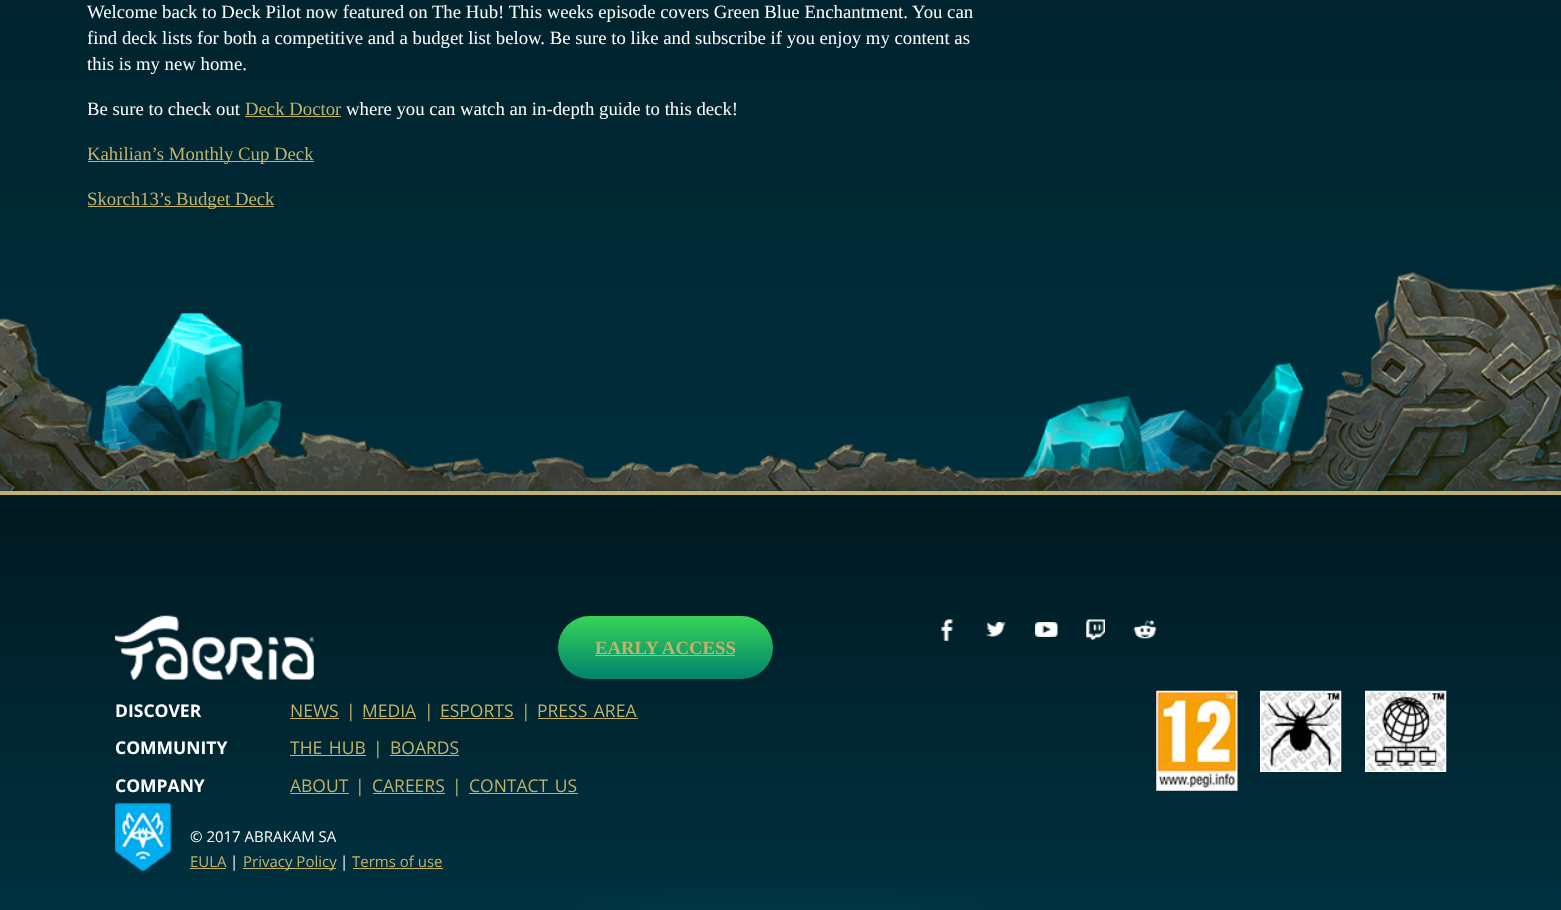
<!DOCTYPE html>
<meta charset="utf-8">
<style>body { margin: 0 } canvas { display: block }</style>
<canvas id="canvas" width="1561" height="910"></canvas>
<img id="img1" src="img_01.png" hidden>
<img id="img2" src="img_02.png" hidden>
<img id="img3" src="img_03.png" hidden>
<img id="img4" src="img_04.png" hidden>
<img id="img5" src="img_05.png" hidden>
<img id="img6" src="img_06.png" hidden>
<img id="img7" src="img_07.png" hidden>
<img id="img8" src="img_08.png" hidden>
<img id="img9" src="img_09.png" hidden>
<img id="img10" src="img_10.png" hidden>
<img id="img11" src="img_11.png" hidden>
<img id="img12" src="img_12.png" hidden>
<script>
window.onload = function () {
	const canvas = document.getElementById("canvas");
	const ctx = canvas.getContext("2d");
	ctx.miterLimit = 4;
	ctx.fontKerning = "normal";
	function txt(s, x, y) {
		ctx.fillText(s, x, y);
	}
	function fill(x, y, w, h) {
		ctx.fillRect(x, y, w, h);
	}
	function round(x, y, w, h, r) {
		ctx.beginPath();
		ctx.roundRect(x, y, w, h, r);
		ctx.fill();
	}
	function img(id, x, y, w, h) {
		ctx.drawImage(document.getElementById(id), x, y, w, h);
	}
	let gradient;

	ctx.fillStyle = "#FFFFFF";
	fill(0, 0, 1561, 910);
	gradient = ctx.createLinearGradient(781, -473, 781, 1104);
	gradient.addColorStop(0, "#001920");
	gradient.addColorStop(1, "#003D4F");
	ctx.fillStyle = gradient;
	fill(0, 0, 1561, 491);
	ctx.fillStyle = "#C3B36A";
	fill(245, 116, 96, 1);
	fill(88, 161, 226, 1);
	fill(88, 206, 186, 1);
	gradient = ctx.createLinearGradient(781, 491, 781, 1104);
	gradient.addColorStop(0, "#001920");
	gradient.addColorStop(1, "#003D4F");
	ctx.fillStyle = gradient;
	fill(0, 495, 1561, 415);
	img("img1", 0, 272, 1561, 219);
	ctx.fillStyle = "#C3B36A";
	fill(0, 491, 1561, 4);
	img("img2", 115, 615, 199, 65);
	img("img3", 941, 619, 12, 22);
	img("img4", 986, 622, 20, 15);
	img("img5", 1035, 622, 23, 15);
	img("img6", 1086, 619, 19, 21);
	img("img7", 1133, 620, 24, 19);
	gradient = ctx.createLinearGradient(665, 616, 665, 741);
	gradient.addColorStop(0, "#36D457");
	gradient.addColorStop(0.5, "#01836E");
	gradient.addColorStop(1, "#36D457");
	ctx.fillStyle = gradient;
	round(558, 616, 215, 63, 31.5);
	ctx.fillStyle = "#C3B36A";
	fill(595, 655, 140, 1);
	fill(290, 718, 49, 1);
	fill(363, 718, 53, 1);
	fill(440, 718, 74, 1);
	fill(538, 718, 100, 1);
	fill(290, 755, 76, 1);
	fill(390, 755, 69, 1);
	fill(290, 793, 59, 1);
	fill(373, 793, 72, 1);
	fill(469, 793, 109, 1);
	img("img8", 1156, 690, 82, 101);
	img("img9", 1260, 690, 82, 82);
	img("img10", 1365, 690, 82, 82);
	img("img11", 115, 803, 57, 68);
	fill(190, 868, 36, 1);
	fill(243, 868, 93, 1);
	fill(353, 868, 90, 1);
	img("img12", 581, 888, 401, 22);
	ctx.font = "18.75px Liberation Serif";
	ctx.fillStyle = "#FFFFFF";
	txt("Welcome back to Deck Pilot now featured on The Hub! This weeks episode covers Green Blue Enchantment. You can", 87, 18);
	ctx.save();
	ctx.beginPath();
	ctx.rect(88, 0, 890, 231);
	ctx.clip();
	txt("find deck lists for both a competitive and a budget list below. Be sure to like and subscribe if you enjoy my content as", 87, 44);
	ctx.restore();
	txt("this is my new home.", 87, 70);
	ctx.save();
	ctx.beginPath();
	ctx.rect(88, 0, 890, 231);
	ctx.clip();
	txt("Be sure to check out", 87, 115);
	ctx.restore();
	ctx.fillStyle = "#C3B36A";
	txt("Deck Doctor", 245, 115);
	ctx.fillStyle = "#FFFFFF";
	txt("where you can watch an in-depth guide to this deck!", 346, 115);
	ctx.save();
	ctx.beginPath();
	ctx.rect(88, 0, 890, 231);
	ctx.clip();
	ctx.fillStyle = "#C3B36A";
	txt("Kahilian’s Monthly Cup Deck", 87, 160);
	ctx.restore();
	ctx.fillStyle = "#C3B36A";
	txt("Skorch13’s Budget Deck", 87, 205);
	ctx.font = "bold 18.75px Liberation Serif";
	txt("EARLY ACCESS", 595, 654);
	ctx.font = "bold 17.5px Open Sans";
	ctx.fillStyle = "#FFFFFF";
	txt("DISCOVER", 115, 717);
	ctx.font = "17.5px Open Sans";
	ctx.fillStyle = "#C3B36A";
	txt("NEWS", 290, 717);
	txt("|", 346, 717);
	txt("MEDIA", 362, 717);
	txt("|", 424, 717);
	txt("ESPORTS", 440, 717);
	txt("|", 521, 717);
	ctx.wordSpacing = "2px";
	txt("PRESS AREA", 537, 717);
	ctx.wordSpacing = "0px";
	ctx.font = "bold 17.5px Open Sans";
	ctx.fillStyle = "#FFFFFF";
	txt("COMMUNITY", 115, 754);
	ctx.wordSpacing = "2px";
	ctx.font = "17.5px Open Sans";
	ctx.fillStyle = "#C3B36A";
	txt("THE HUB", 290, 754);
	ctx.wordSpacing = "0px";
	txt("|", 373, 754);
	txt("BOARDS", 390, 754);
	ctx.font = "bold 17.5px Open Sans";
	ctx.fillStyle = "#FFFFFF";
	txt("COMPANY", 115, 792);
	ctx.font = "17.5px Open Sans";
	ctx.fillStyle = "#C3B36A";
	txt("ABOUT", 290, 792);
	txt("|", 355, 792);
	txt("CAREERS", 372, 792);
	txt("|", 452, 792);
	ctx.wordSpacing = "2px";
	txt("CONTACT US", 469, 792);
	ctx.wordSpacing = "0px";
	ctx.font = "15px Open Sans";
	ctx.fillStyle = "#FFFFFF";
	txt("© 2017 ABRAKAM SA", 190, 842);
	ctx.fillStyle = "#C3B36A";
	txt("EULA", 190, 867);
	ctx.fillStyle = "#FFFFFF";
	txt("|", 230, 867);
	ctx.fillStyle = "#C3B36A";
	txt("Privacy Policy", 243, 867);
	ctx.fillStyle = "#FFFFFF";
	txt("|", 340, 867);
	ctx.fillStyle = "#C3B36A";
	txt("Terms of use", 352, 867);
};
</script>
